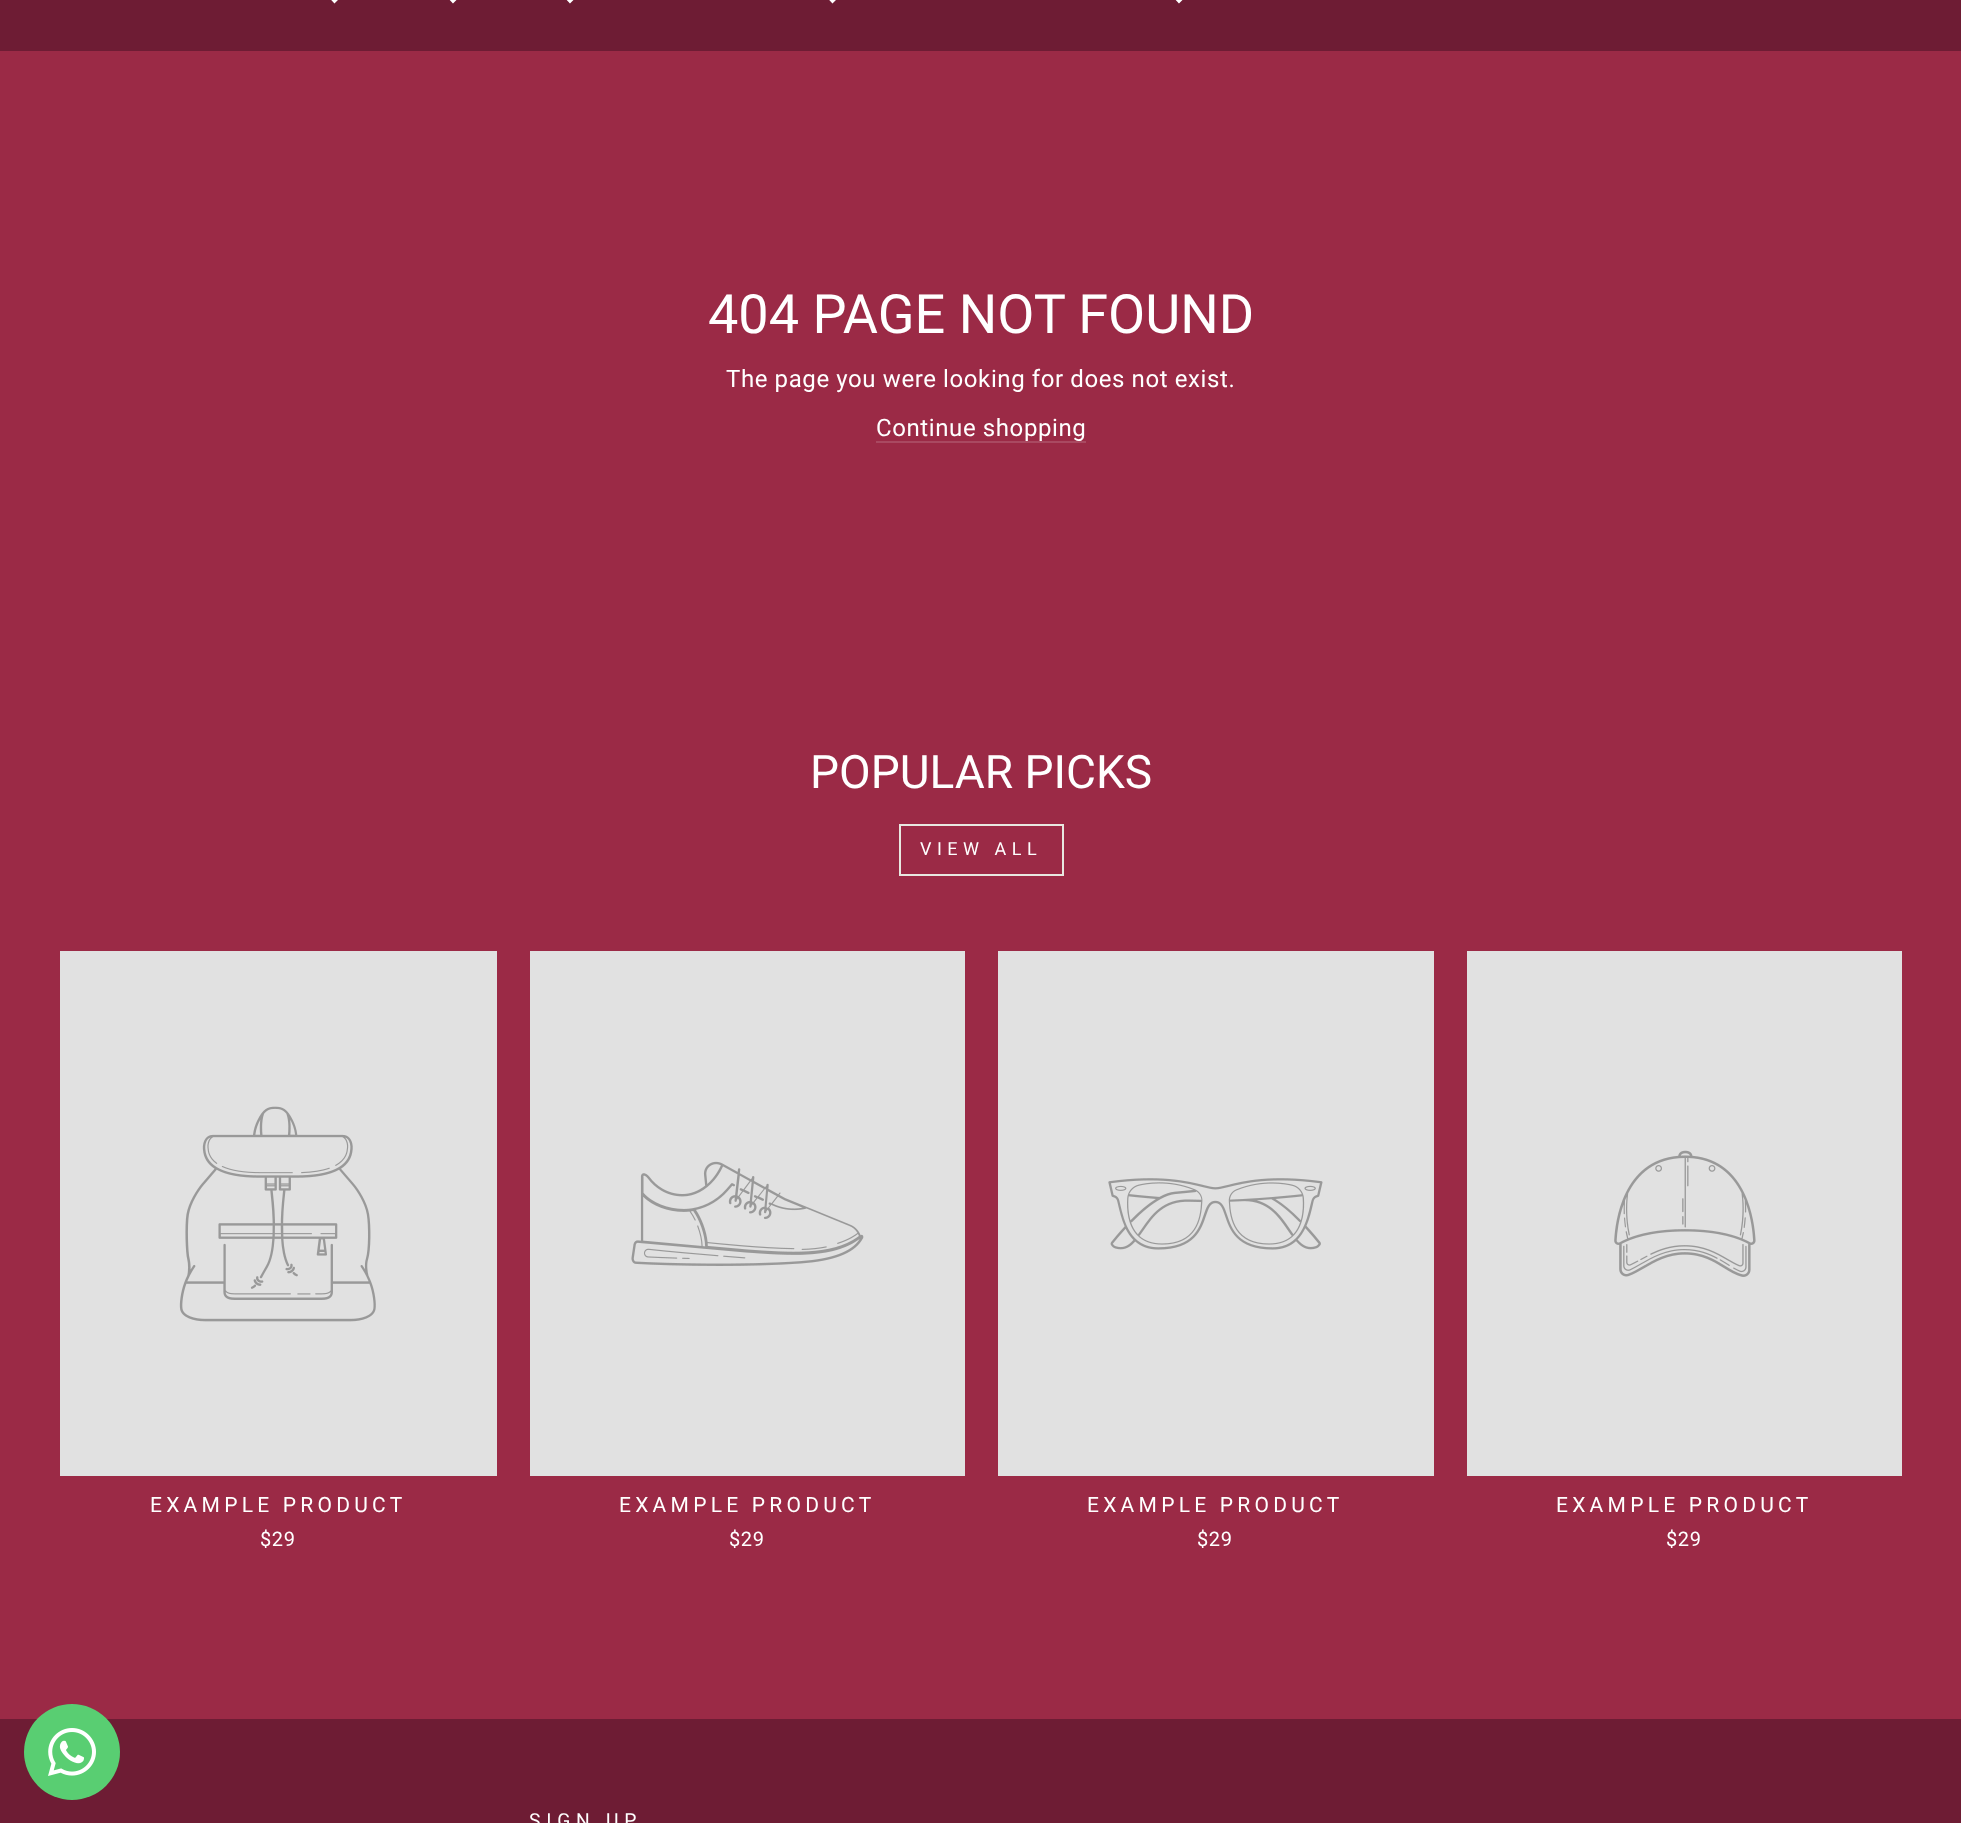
<!DOCTYPE html>
<meta charset="utf-8">
<style>body { margin: 0 } canvas { display: block }</style>
<canvas id="canvas" width="1961" height="1823"></canvas>
<img id="img1" src="img_01.png" hidden>
<img id="img2" src="img_02.png" hidden>
<img id="img3" src="img_03.png" hidden>
<img id="img4" src="img_04.png" hidden>
<img id="img5" src="img_05.png" hidden>
<script>
window.onload = function () {
	const canvas = document.getElementById("canvas");
	const ctx = canvas.getContext("2d");
	ctx.miterLimit = 4;
	ctx.fontKerning = "normal";
	function txt(s, x, y) {
		ctx.fillText(s, x, y);
	}
	function fill(x, y, w, h) {
		ctx.fillRect(x, y, w, h);
	}
	function img(id, x, y, w, h) {
		ctx.drawImage(document.getElementById(id), x, y, w, h);
	}

	ctx.fillStyle = "#9B2A46";
	fill(0, 0, 1961, 1823);
	ctx.fillStyle = "#6E1C34";
	fill(0, 1719, 1961, 104);
	ctx.fillStyle = "#59CE72";
	ctx.beginPath();
	ctx.arc(72, 1752, 48, 0, Math.PI * 2);
	ctx.fill();
	img("img1", 48, 1728, 48, 48);
	ctx.fillStyle = "#6E1C34";
	fill(0, 0, 1961, 51);
	ctx.beginPath();
	ctx.moveTo(328, -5);
	ctx.lineTo(334.5, 2);
	ctx.lineTo(341.5, -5);
	ctx.strokeStyle = "#FFFFFF";
	ctx.lineWidth = 2.1;
	ctx.stroke();
	ctx.beginPath();
	ctx.moveTo(446.5, -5);
	ctx.lineTo(453, 2);
	ctx.lineTo(460, -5);
	ctx.stroke();
	ctx.beginPath();
	ctx.moveTo(563.5, -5);
	ctx.lineTo(570, 2);
	ctx.lineTo(577, -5);
	ctx.stroke();
	ctx.beginPath();
	ctx.moveTo(826, -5);
	ctx.lineTo(832.5, 2);
	ctx.lineTo(839.5, -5);
	ctx.stroke();
	ctx.beginPath();
	ctx.moveTo(1172.5, -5);
	ctx.lineTo(1179, 2);
	ctx.lineTo(1186, -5);
	ctx.stroke();
	ctx.fillStyle = "#A94961";
	fill(876, 441, 210, 2);
	ctx.strokeStyle = "#E8E8E1";
	ctx.lineWidth = 2;
	ctx.strokeRect(900, 825, 163, 50);
	ctx.fillStyle = "#E1E1E1";
	fill(60, 951, 437, 525);
	img("img2", 179, 1106, 197, 216);
	fill(530, 951, 435, 525);
	img("img3", 631, 1161, 233, 105);
	fill(998, 951, 436, 525);
	img("img4", 1108, 1178, 215, 72);
	fill(1467, 951, 435, 525);
	img("img5", 1614, 1150, 142, 127);
	ctx.font = "54px Roboto";
	ctx.fillStyle = "#FFFFFF";
	txt("404 PAGE NOT FOUND", 708, 333);
	ctx.letterSpacing = "0.6px";
	ctx.font = "24px Roboto";
	txt("The page you were looking for does not exist.", 726, 387);
	txt("Continue shopping", 876, 436);
	ctx.letterSpacing = "0px";
	ctx.font = "46px Roboto";
	txt("POPULAR PICKS", 810, 788);
	ctx.letterSpacing = "5.5px";
	ctx.font = "18px Roboto";
	txt("VIEW ALL", 920, 855);
	ctx.letterSpacing = "4.25px";
	ctx.font = "21px Roboto";
	txt("EXAMPLE PRODUCT", 150, 1512);
	ctx.letterSpacing = "0.6px";
	ctx.font = "20px Roboto";
	txt("$29", 260, 1546);
	ctx.letterSpacing = "4.25px";
	ctx.font = "21px Roboto";
	txt("EXAMPLE PRODUCT", 619, 1512);
	ctx.letterSpacing = "0.6px";
	ctx.font = "20px Roboto";
	txt("$29", 729, 1546);
	ctx.letterSpacing = "4.25px";
	ctx.font = "21px Roboto";
	txt("EXAMPLE PRODUCT", 1087, 1512);
	ctx.letterSpacing = "0.6px";
	ctx.font = "20px Roboto";
	txt("$29", 1197, 1546);
	ctx.letterSpacing = "4.25px";
	ctx.font = "21px Roboto";
	txt("EXAMPLE PRODUCT", 1556, 1512);
	ctx.letterSpacing = "0.6px";
	ctx.font = "20px Roboto";
	txt("$29", 1666, 1546);
	ctx.letterSpacing = "5.75px";
	ctx.font = "19.25px Roboto";
	txt("SIGN UP", 529, 1827);
};
</script>
